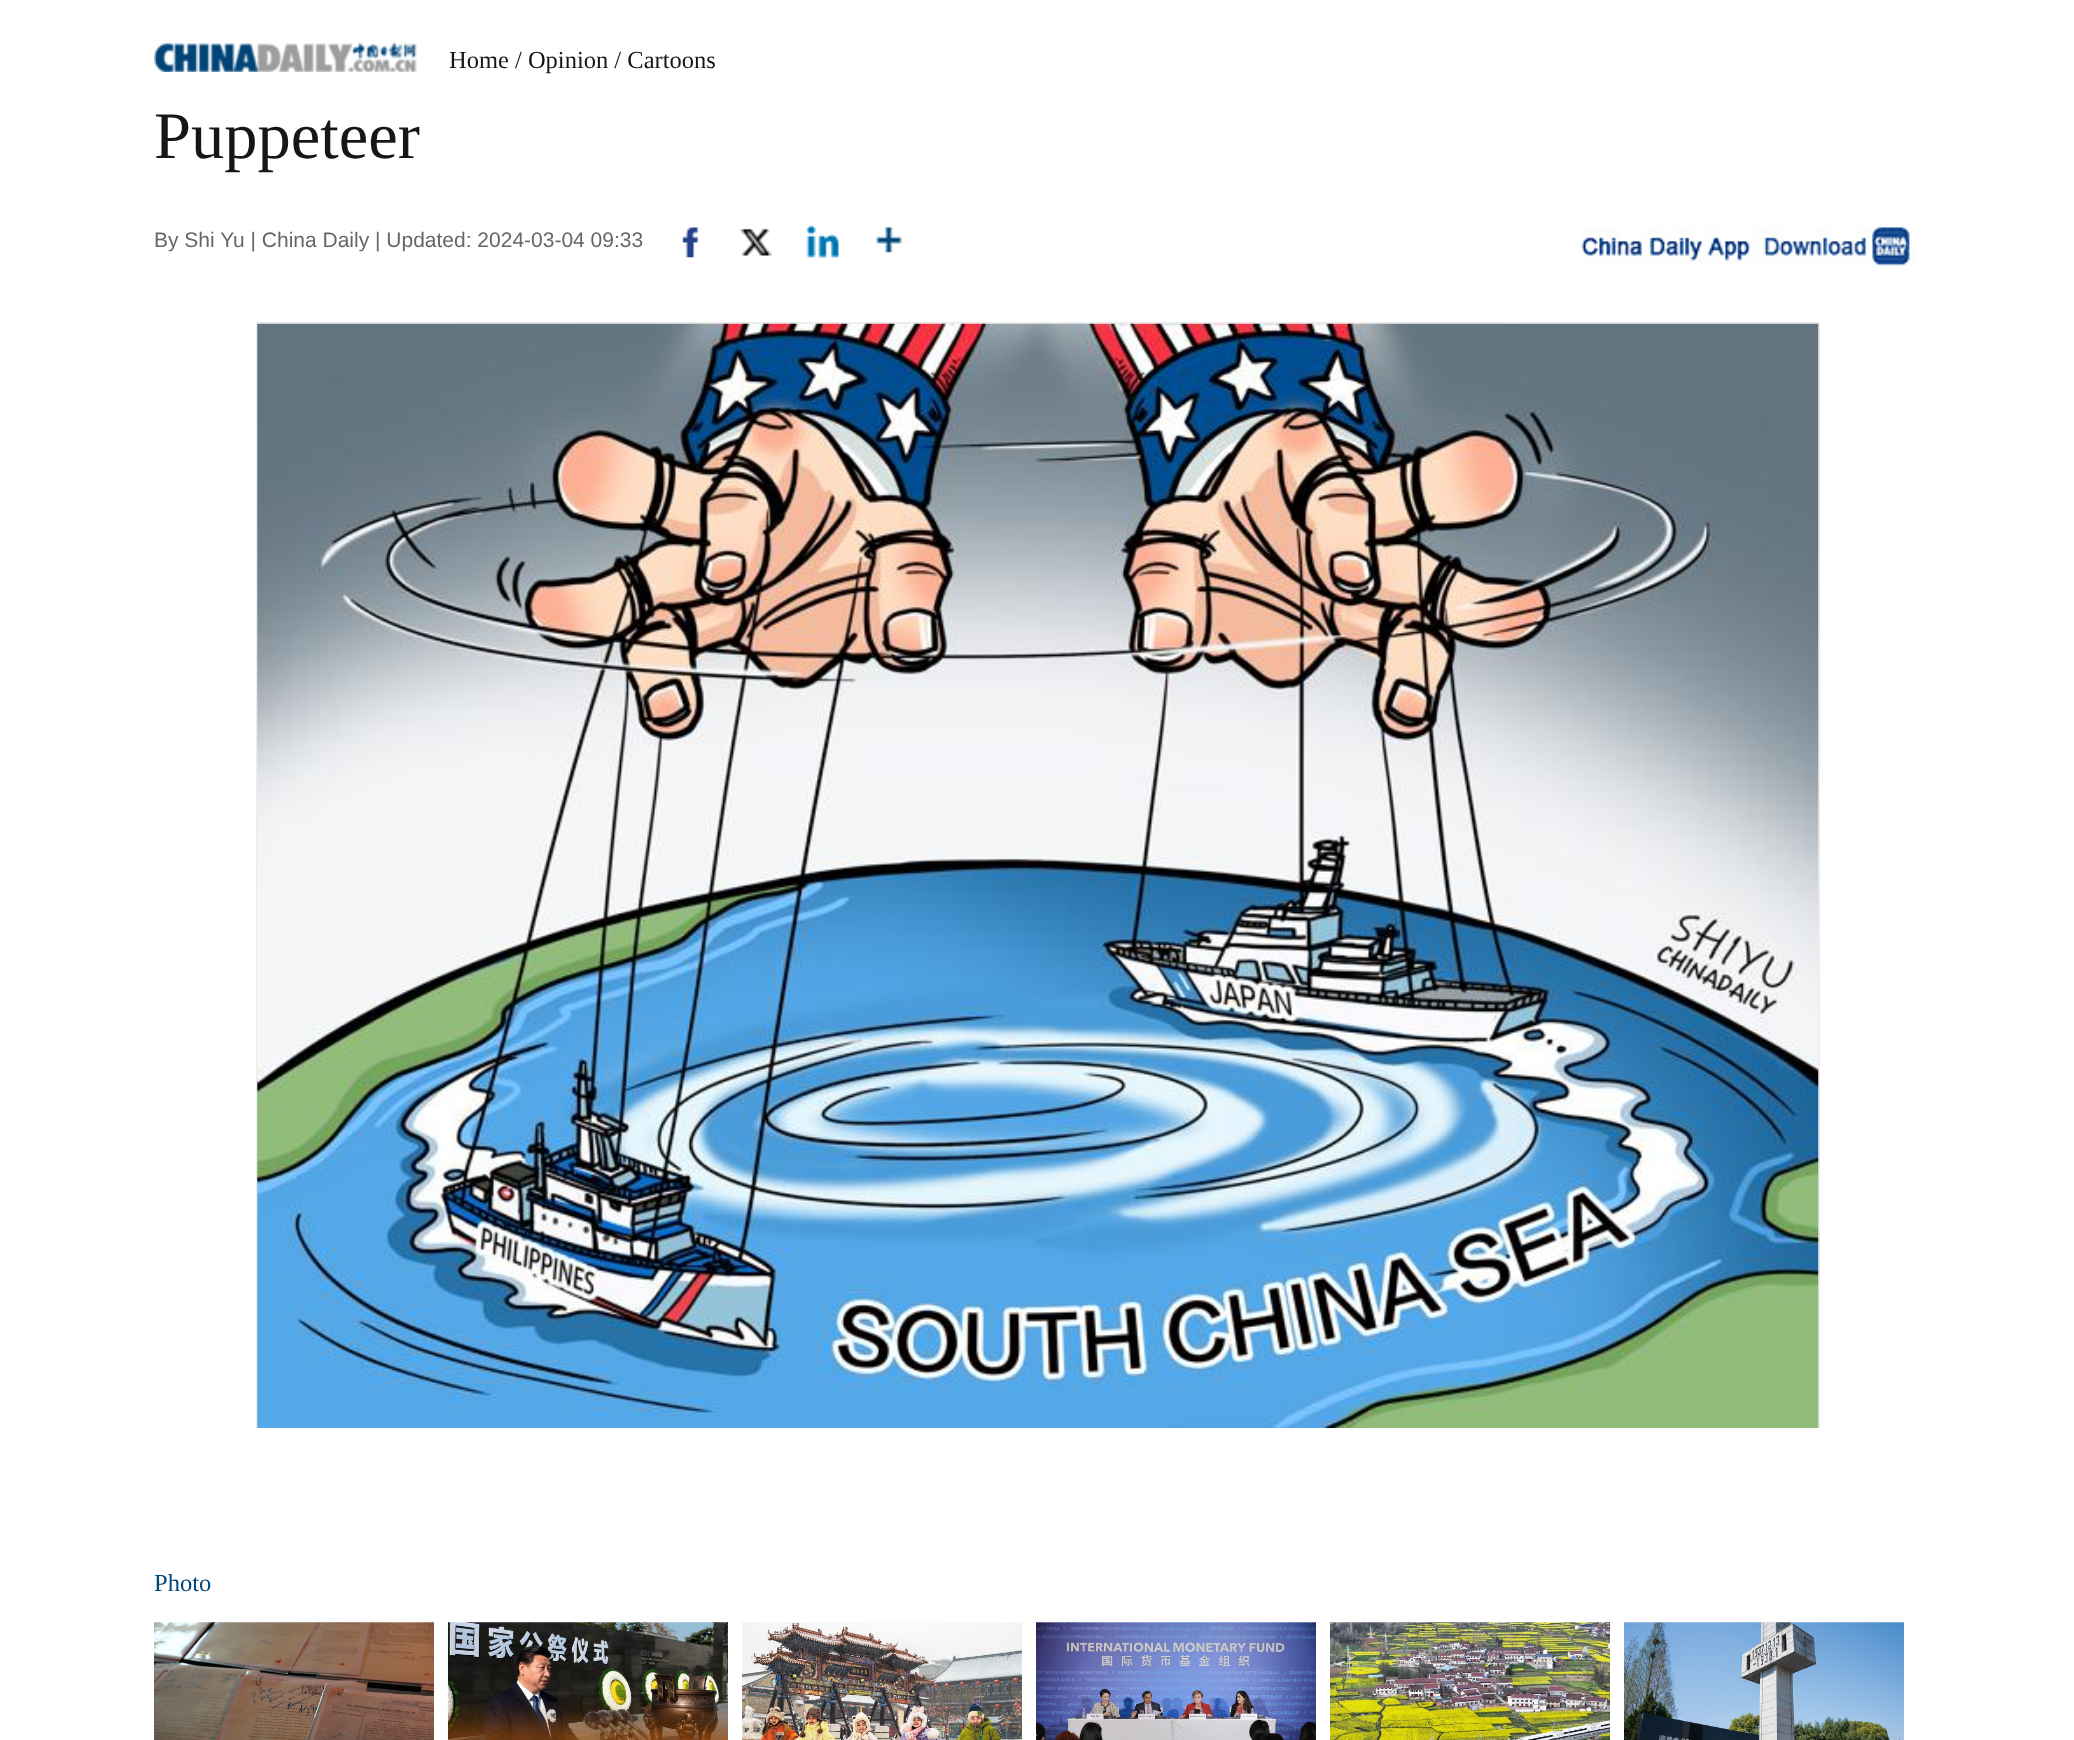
<!DOCTYPE html>
<meta charset="utf-8">
<style>body { margin: 0 } canvas { display: block }</style>
<canvas id="canvas" width="2074" height="1740"></canvas>
<img id="img1" src="img_01.png" hidden>
<img id="img2" src="img_02.png" hidden>
<img id="img3" src="img_03.png" hidden>
<img id="img4" src="img_04.png" hidden>
<img id="img5" src="img_05.png" hidden>
<img id="img6" src="img_06.png" hidden>
<img id="img7" src="img_07.png" hidden>
<img id="img8" src="img_08.png" hidden>
<img id="img9" src="img_09.png" hidden>
<img id="img10" src="img_10.png" hidden>
<img id="img11" src="img_11.png" hidden>
<img id="img12" src="img_12.png" hidden>
<img id="img13" src="img_13.png" hidden>
<script>
window.onload = function () {
	const canvas = document.getElementById("canvas");
	const ctx = canvas.getContext("2d");
	ctx.miterLimit = 4;
	ctx.fontKerning = "normal";
	function txt(s, x, y) {
		ctx.fillText(s, x, y);
	}
	function fill(x, y, w, h) {
		ctx.fillRect(x, y, w, h);
	}
	function img(id, x, y, w, h) {
		ctx.drawImage(document.getElementById(id), x, y, w, h);
	}

	ctx.fillStyle = "#FFFFFF";
	fill(0, 0, 2074, 1740);
	img("img1", 154, 41, 263, 31);
	img("img2", 682, 227, 17, 31);
	img("img3", 740, 228, 32, 28);
	img("img4", 806, 225, 33, 33);
	img("img5", 876, 227, 26, 26);
	img("img6", 1581, 226, 335, 41);
	ctx.fillStyle = "#ECECEC";
	fill(256, 322, 1564, 2);
	fill(256, 322, 2, 1106);
	fill(1818, 322, 2, 1106);
	img("img7", 257, 323, 1562, 1105);
	img("img8", 154, 1622, 280, 118);
	img("img9", 448, 1622, 280, 118);
	img("img10", 742, 1622, 280, 118);
	img("img11", 1036, 1622, 280, 118);
	img("img12", 1330, 1622, 280, 118);
	img("img13", 1624, 1622, 280, 118);
	ctx.font = "24.5px Liberation Serif";
	ctx.fillStyle = "#161616";
	txt("Home / Opinion / Cartoons", 449, 68);
	ctx.font = "66.5px Liberation Serif";
	txt("Puppeteer", 154, 158);
	ctx.font = "21px Liberation Sans";
	ctx.fillStyle = "#666666";
	txt("By Shi Yu | China Daily | Updated: 2024-03-04 09:33", 154, 247);
	ctx.font = "24.5px Liberation Serif";
	ctx.fillStyle = "#004679";
	txt("Photo", 154, 1591);
};
</script>
